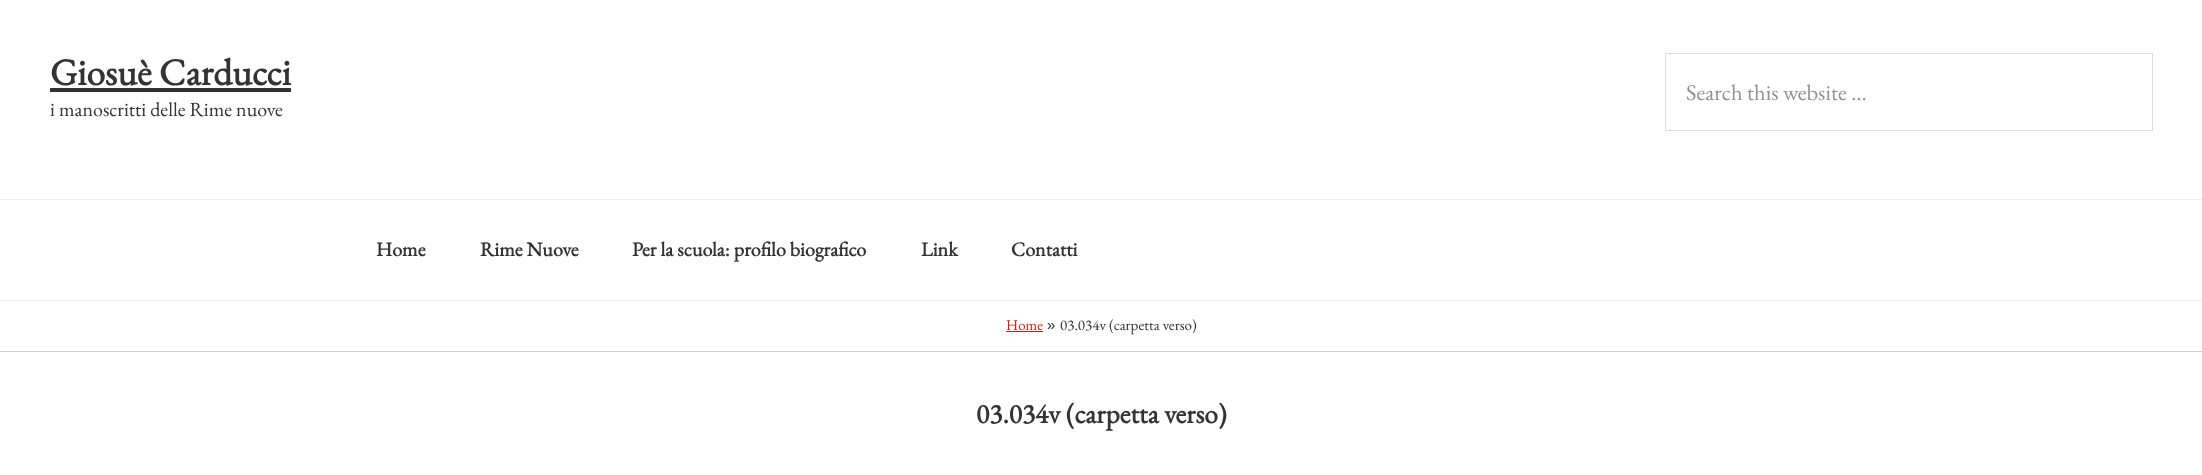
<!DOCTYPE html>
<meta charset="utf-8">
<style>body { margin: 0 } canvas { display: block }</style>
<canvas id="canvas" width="2202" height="475"></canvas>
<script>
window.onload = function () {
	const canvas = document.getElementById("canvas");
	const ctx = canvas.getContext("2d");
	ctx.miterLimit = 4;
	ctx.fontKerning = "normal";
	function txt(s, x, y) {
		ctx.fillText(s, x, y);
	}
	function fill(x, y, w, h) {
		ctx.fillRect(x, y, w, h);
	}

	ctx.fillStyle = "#FFFFFF";
	fill(0, 0, 2202, 475);
	ctx.fillStyle = "#EEEEEE";
	fill(0, 199, 2202, 1);
	ctx.fillStyle = "#333333";
	fill(50, 88, 241, 4);
	ctx.strokeStyle = "#DDDDDD";
	ctx.strokeRect(1665.5, 53.5, 487, 77);
	ctx.fillStyle = "#EEEEEE";
	fill(0, 300, 2202, 1);
	ctx.fillStyle = "#CCCCCC";
	fill(0, 351, 2202, 1);
	ctx.fillStyle = "#C3251D";
	fill(1006, 331, 37, 1);
	ctx.font = "bold 37.5px EB Garamond";
	ctx.fillStyle = "#333333";
	txt("Giosuè Carducci", 50, 85);
	ctx.font = "20px EB Garamond";
	txt("i manoscritti delle Rime nuove", 50, 116);
	ctx.font = "22.5px EB Garamond";
	ctx.fillStyle = "#919191";
	txt("Search this website …", 1686, 100);
	ctx.font = "bold 20px EB Garamond";
	ctx.fillStyle = "#333333";
	txt("Home", 376, 256);
	txt("Rime Nuove", 480, 256);
	txt("Per la scuola: profilo biografico", 632, 256);
	txt("Link", 921, 256);
	txt("Contatti", 1011, 256);
	ctx.font = "15px EB Garamond";
	ctx.fillStyle = "#C3251D";
	txt("Home", 1006, 330);
	ctx.font = "15px Liberation Sans";
	ctx.fillStyle = "#333333";
	txt("»", 1047, 330);
	ctx.font = "15px EB Garamond";
	txt("03.034v (carpetta verso)", 1060, 330);
	ctx.font = "bold 27.5px EB Garamond";
	txt("03.034v (carpetta verso)", 976, 423);
};
</script>
